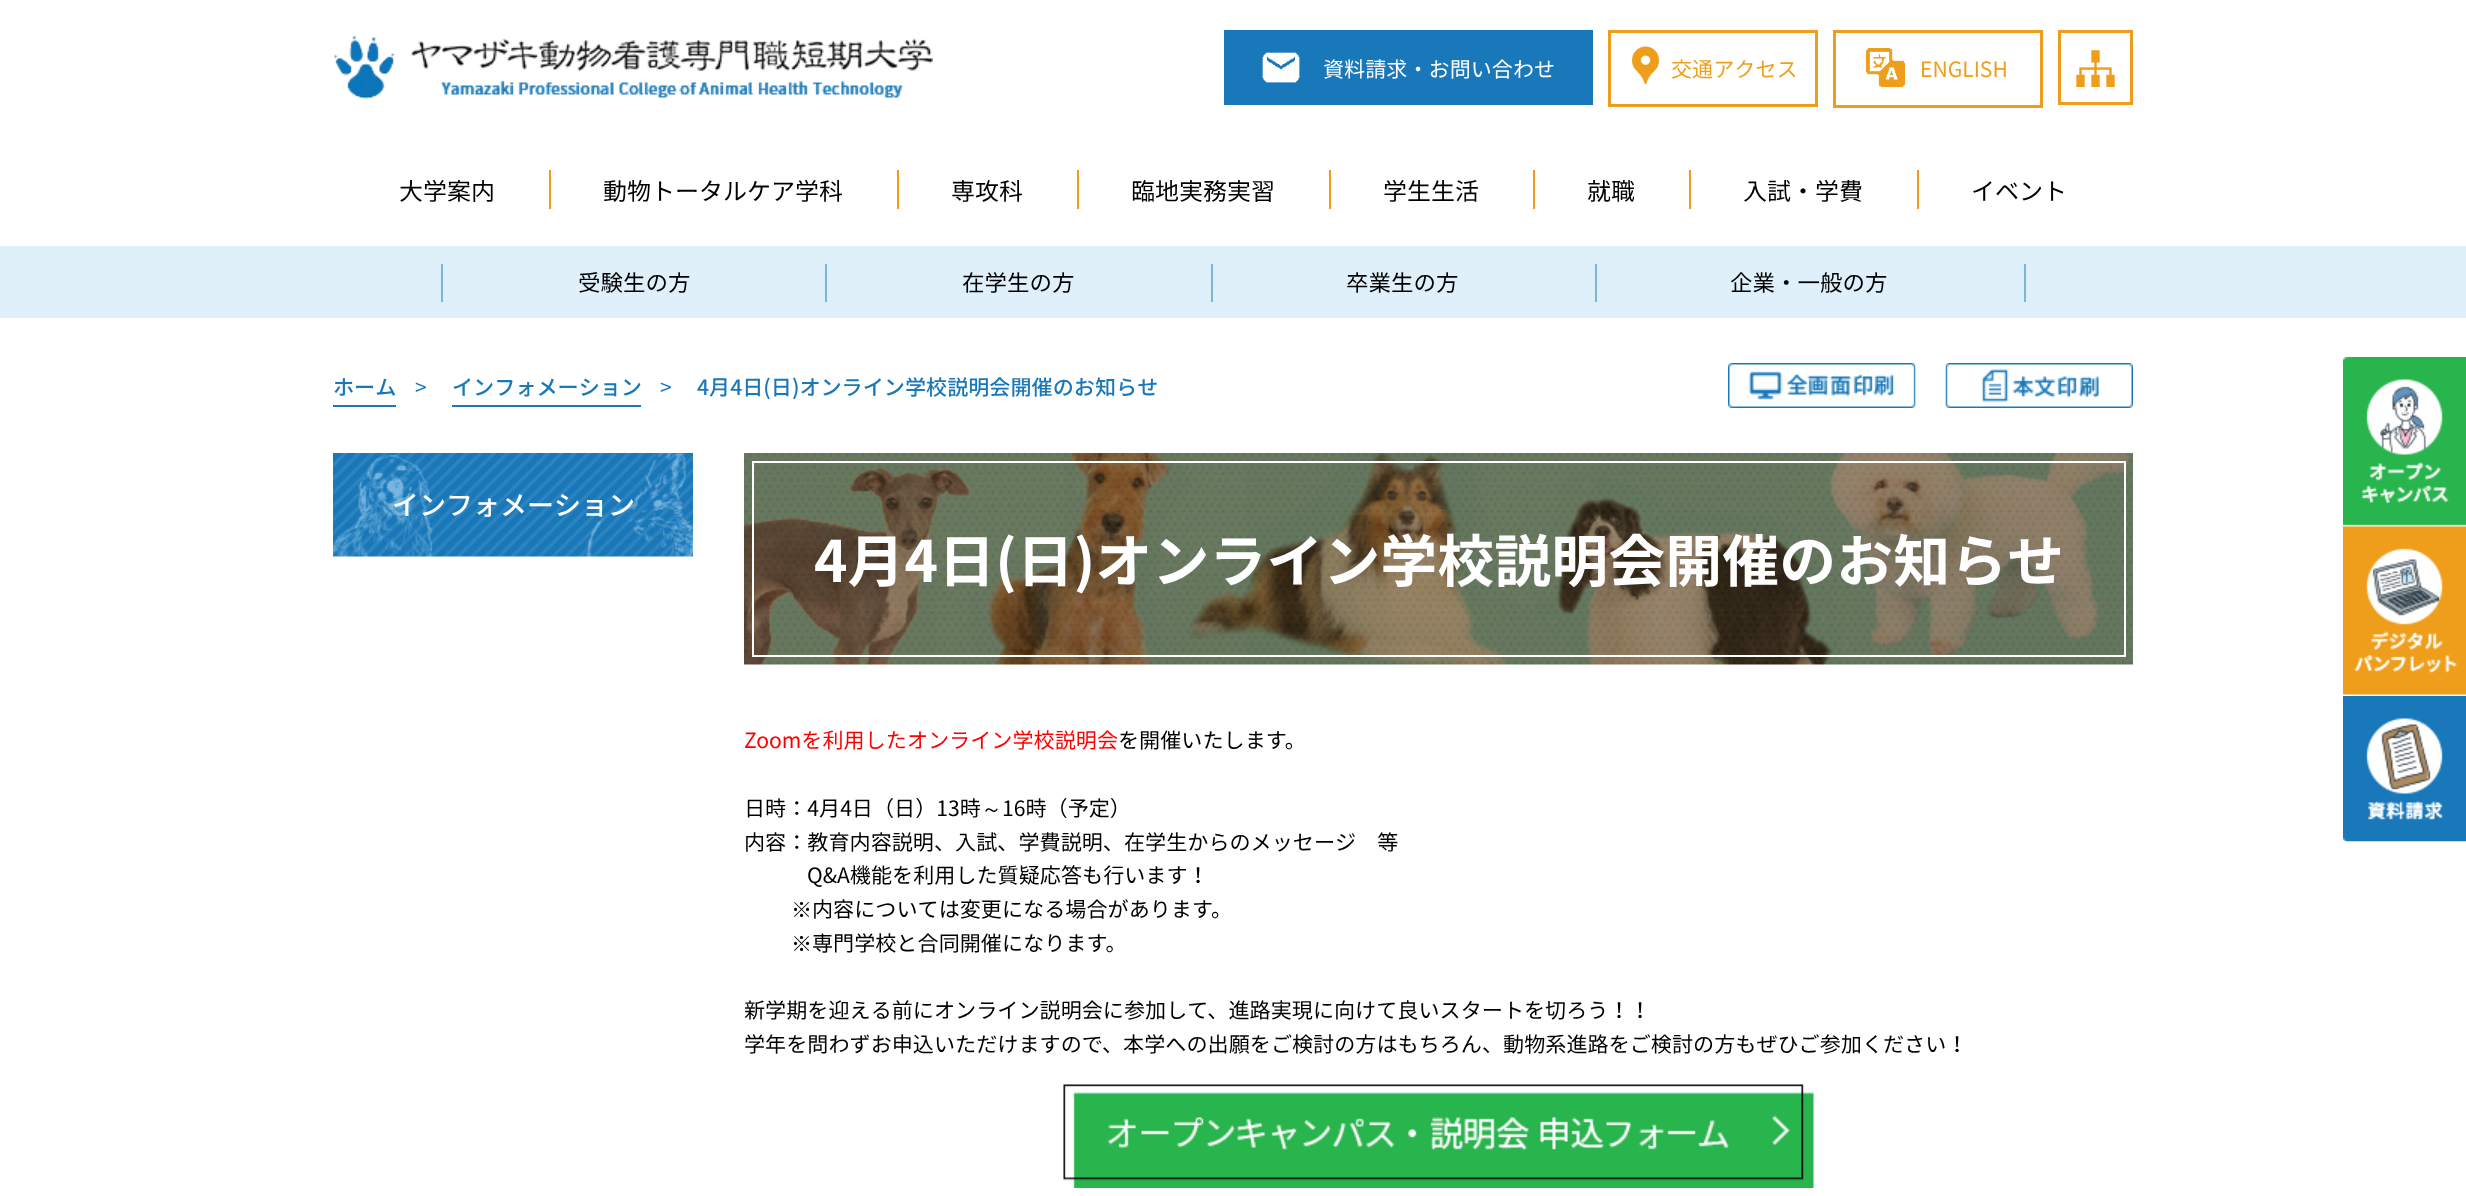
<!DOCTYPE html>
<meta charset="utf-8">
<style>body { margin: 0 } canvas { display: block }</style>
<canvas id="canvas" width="2466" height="1196"></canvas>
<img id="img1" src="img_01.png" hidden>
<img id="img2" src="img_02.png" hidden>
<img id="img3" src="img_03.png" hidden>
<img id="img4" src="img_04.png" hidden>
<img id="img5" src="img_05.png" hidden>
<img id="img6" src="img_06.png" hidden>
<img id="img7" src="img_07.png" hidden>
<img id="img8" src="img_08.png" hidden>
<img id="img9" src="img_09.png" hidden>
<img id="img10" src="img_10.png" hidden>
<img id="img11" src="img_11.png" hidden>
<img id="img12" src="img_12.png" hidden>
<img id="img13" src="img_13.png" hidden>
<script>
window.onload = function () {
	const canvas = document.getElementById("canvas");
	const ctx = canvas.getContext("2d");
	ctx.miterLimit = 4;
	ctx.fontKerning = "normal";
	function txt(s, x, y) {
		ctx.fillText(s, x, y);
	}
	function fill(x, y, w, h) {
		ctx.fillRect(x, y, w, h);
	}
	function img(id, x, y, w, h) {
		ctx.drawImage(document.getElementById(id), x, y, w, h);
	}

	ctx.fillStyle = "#FFFFFF";
	fill(0, 0, 2466, 1196);
	img("img1", 334, 36, 599, 63);
	ctx.fillStyle = "#1978B9";
	fill(1224, 30, 369, 75);
	img("img2", 1262, 52, 38, 31);
	ctx.strokeStyle = "#EF9E1B";
	ctx.lineWidth = 3;
	ctx.strokeRect(1609.5, 31.5, 207, 74);
	img("img3", 1632, 46, 27, 38);
	ctx.strokeRect(1834.5, 31.5, 207, 75);
	img("img4", 1866, 48, 39, 39);
	img("img5", 2076, 49, 39, 38);
	ctx.strokeRect(2059.5, 31.5, 72, 72);
	ctx.fillStyle = "#EF9E1B";
	fill(549, 170, 2, 39);
	fill(897, 170, 2, 39);
	fill(1077, 170, 2, 39);
	fill(1329, 170, 2, 39);
	fill(1533, 170, 2, 39);
	fill(1689, 170, 2, 39);
	fill(1917, 170, 2, 39);
	ctx.fillStyle = "#DFF0FA";
	fill(0, 246, 2466, 72);
	ctx.fillStyle = "#7FB6D6";
	fill(441, 264, 2, 38);
	fill(825, 264, 2, 38);
	fill(1211, 264, 2, 38);
	fill(2024, 264, 2, 38);
	fill(1595, 264, 2, 38);
	ctx.fillStyle = "#1978B9";
	fill(333, 405, 63, 2);
	fill(452, 405, 189, 2);
	img("img6", 1728, 363, 188, 45);
	img("img7", 1945, 363, 188, 45);
	img("img8", 333, 453, 360, 104);
	img("img9", 744, 453, 1389, 212);
	ctx.strokeStyle = "#FFFFFF";
	ctx.lineWidth = 2;
	ctx.strokeRect(753, 462, 1372, 194);
	img("img10", 1063, 1084, 751, 104);
	img("img11", 2343, 357, 123, 169);
	img("img12", 2343, 526, 123, 169);
	img("img13", 2343, 696, 123, 146);
	ctx.font = "21.12px Noto Sans JP";
	ctx.fillStyle = "#FFFFFF";
	txt("資料請求・お問い合わせ", 1323, 77);
	ctx.fillStyle = "#EF9E1B";
	txt("交通アクセス", 1671, 77);
	txt("ENGLISH", 1920, 77);
	ctx.font = "24px Noto Sans JP";
	ctx.fillStyle = "#000000";
	txt("大学案内", 399, 200);
	txt("動物トータルケア学科", 603, 200);
	txt("専攻科", 951, 200);
	txt("臨地実務実習", 1131, 200);
	txt("学生生活", 1383, 200);
	txt("就職", 1587, 200);
	txt("入試・学費", 1743, 200);
	txt("イベント", 1971, 200);
	ctx.font = "22.5px Noto Sans JP";
	txt("受験生の方", 578, 291);
	txt("在学生の方", 962, 291);
	txt("卒業生の方", 1346, 291);
	txt("企業・一般の方", 1730, 291);
	ctx.font = "500 21.12px Noto Sans JP";
	ctx.fillStyle = "#1978B9";
	txt("ホーム", 333, 395);
	ctx.font = "21.12px Noto Sans JP";
	txt(">", 415, 395);
	ctx.font = "500 21.12px Noto Sans JP";
	txt("インフォメーション", 452, 395);
	ctx.font = "21.12px Noto Sans JP";
	txt(">", 660, 395);
	ctx.font = "500 21.12px Noto Sans JP";
	txt("4月4日(日)オンライン学校説明会開催のお知らせ", 697, 395);
	ctx.font = "500 27px Noto Sans JP";
	ctx.fillStyle = "#FFFFFF";
	txt("インフォメーション", 392, 515);
	ctx.font = "bold 57px Noto Sans JP";
	txt("4月4日(日)オンライン学校説明会開催のお知らせ", 814, 582);
	ctx.font = "21.12px Noto Sans JP";
	ctx.fillStyle = "#FF0000";
	txt("Zoomを利用したオンライン学校説明会", 744, 748);
	ctx.fillStyle = "#000000";
	txt("を開催いたします。", 1118, 748);
	txt("日時：4月4日（日）13時", 744, 816);
	ctx.font = "500 21.12px WenQuanYi Zen Hei";
	txt("～", 981, 816);
	ctx.font = "21.12px Noto Sans JP";
	txt("16時（予定）", 1002, 816);
	txt("内容：教育内容説明、入試、学費説明、在学生からのメッセージ　等", 744, 850);
	txt("Q&A機能を利用した質疑応答も行います！", 807, 883);
	ctx.font = "500 21.12px WenQuanYi Zen Hei";
	txt("※", 791, 917);
	ctx.font = "21.12px Noto Sans JP";
	txt("内容については変更になる場合があります。", 812, 917);
	ctx.font = "500 21.12px WenQuanYi Zen Hei";
	txt("※", 791, 951);
	ctx.font = "21.12px Noto Sans JP";
	txt("専門学校と合同開催になります。", 812, 951);
	txt("新学期を迎える前にオンライン説明会に参加して、進路実現に向けて良いスタートを切ろう！！", 744, 1018);
	txt("学年を問わずお申込いただけますので、本学への出願をご検討の方はもちろん、動物系進路をご検討の方もぜひご参加ください！", 744, 1052);
};
</script>
